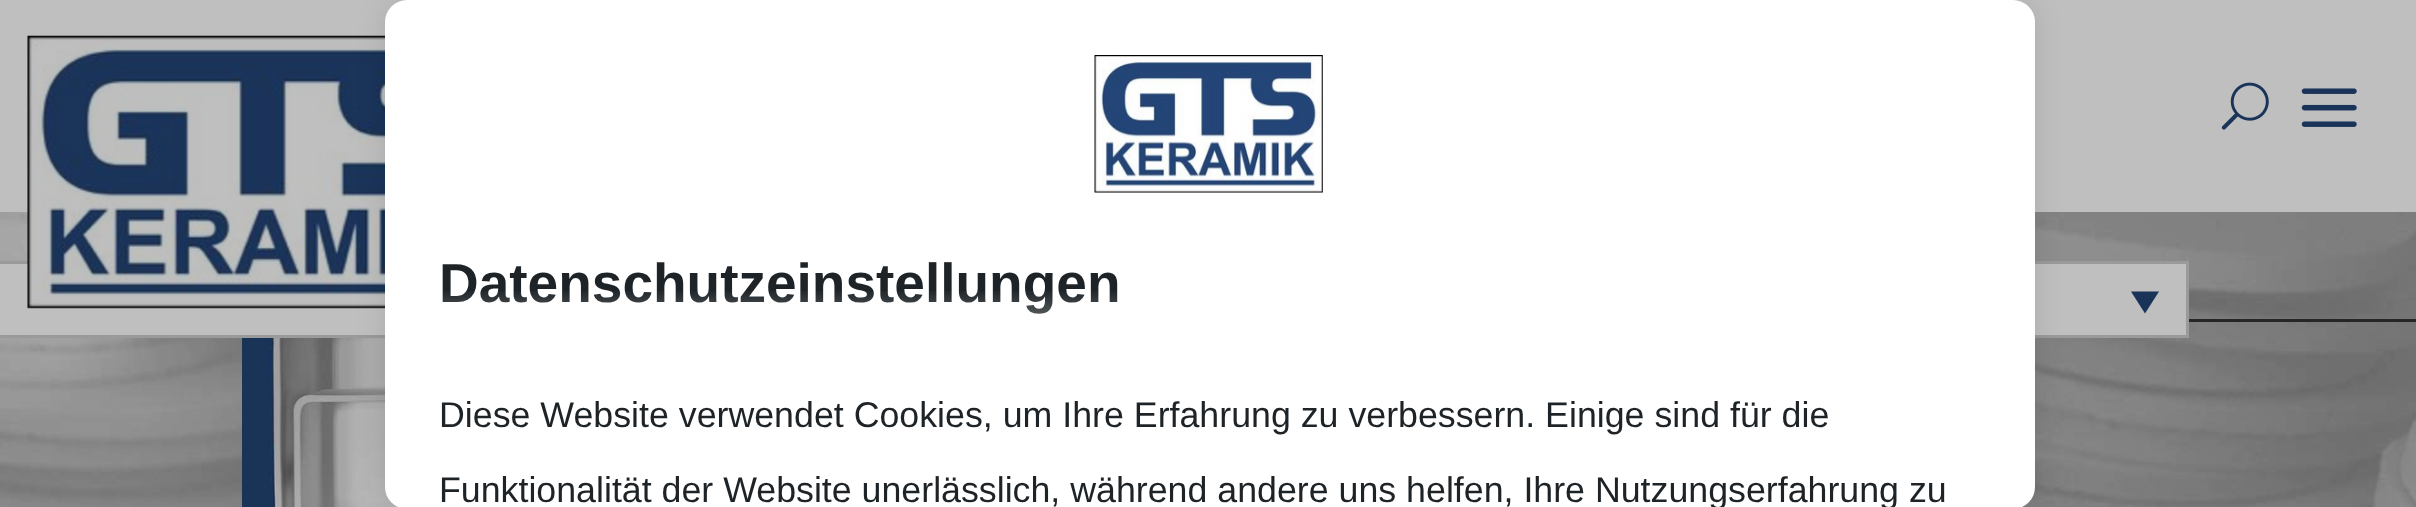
<!DOCTYPE html>
<meta charset="utf-8">
<style>body { margin: 0 } canvas { display: block }</style>
<canvas id="canvas" width="2416" height="507"></canvas>
<img id="img1" src="img_04.png" hidden>
<img id="img2" src="img_01.png" hidden>
<img id="img3" src="img_02.png" hidden>
<img id="img4" src="img_03.png" hidden>
<img id="img5" src="img_05.png" hidden>
<img id="img6" src="img_06.png" hidden>
<script>
window.onload = function () {
	const canvas = document.getElementById("canvas");
	const ctx = canvas.getContext("2d");
	ctx.miterLimit = 4;
	ctx.fontKerning = "normal";
	function txt(s, x, y) {
		ctx.fillText(s, x, y);
	}
	function fill(x, y, w, h) {
		ctx.fillRect(x, y, w, h);
	}
	function round(x, y, w, h, r) {
		ctx.beginPath();
		ctx.roundRect(x, y, w, h, r);
		ctx.fill();
	}
	function img(id, x, y, w, h) {
		ctx.drawImage(document.getElementById(id), x, y, w, h);
	}
	let gradient;

	ctx.fillStyle = "#FFFFFF";
	fill(0, 0, 2416, 507);
	ctx.fillStyle = "#BFBFBF";
	fill(0, 0, 2416, 212);
	img("img1", 0, 212, 2416, 295);
	ctx.fillStyle = "#262626";
	fill(2189, 319, 227, 3);
	ctx.fillStyle = "#BFBFBF";
	ctx.beginPath();
	ctx.rect(-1.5, 262.5, 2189, 74);
	ctx.fill();
	ctx.strokeStyle = "#9A9A9A";
	ctx.lineWidth = 3;
	ctx.stroke();
	img("img2", 27, 35, 358, 274);
	img("img3", 2221, 82, 48, 48);
	img("img4", 2301, 88, 56, 39);
	ctx.fillStyle = "#1A3459";
	ctx.beginPath();
	ctx.moveTo(2131, 291.5);
	ctx.lineTo(2159, 291.5);
	ctx.lineTo(2145, 313.5);
	ctx.closePath();
	ctx.fill();
	img("img5", 242, 338, 156, 169);
	ctx.fillStyle = "rgba(0, 0, 0, 0.1)";
	ctx.filter = "blur(14px)";
	ctx.beginPath();
	ctx.roundRect(385, 0, 1650, 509, 22);
	ctx.fill();
	ctx.filter = "none";
	ctx.fillStyle = "#FFFFFF";
	round(385, 0, 1650, 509, 22);
	img("img6", 1094, 55, 229, 138);
	ctx.font = "bold 55px Liberation Sans";
	ctx.fillStyle = "#1D2327";
	txt("Datenschutzeinstellungen", 439, 302);
	gradient = ctx.createLinearGradient(1210, 399, 1210, 289);
	gradient.addColorStop(0, "#FFFFFF");
	gradient.addColorStop(1, "rgba(255, 255, 255, 0)");
	ctx.fillStyle = gradient;
	fill(442, 291, 675, 23);
	ctx.font = "35.75px Liberation Sans";
	ctx.fillStyle = "#1D2327";
	txt("Diese Website verwendet Cookies, um Ihre Erfahrung zu verbessern. Einige sind für die", 439, 427);
	txt("Funktionalität der Website unerlässlich, während andere uns helfen, Ihre Nutzungserfahrung zu", 439, 502);
};
</script>
